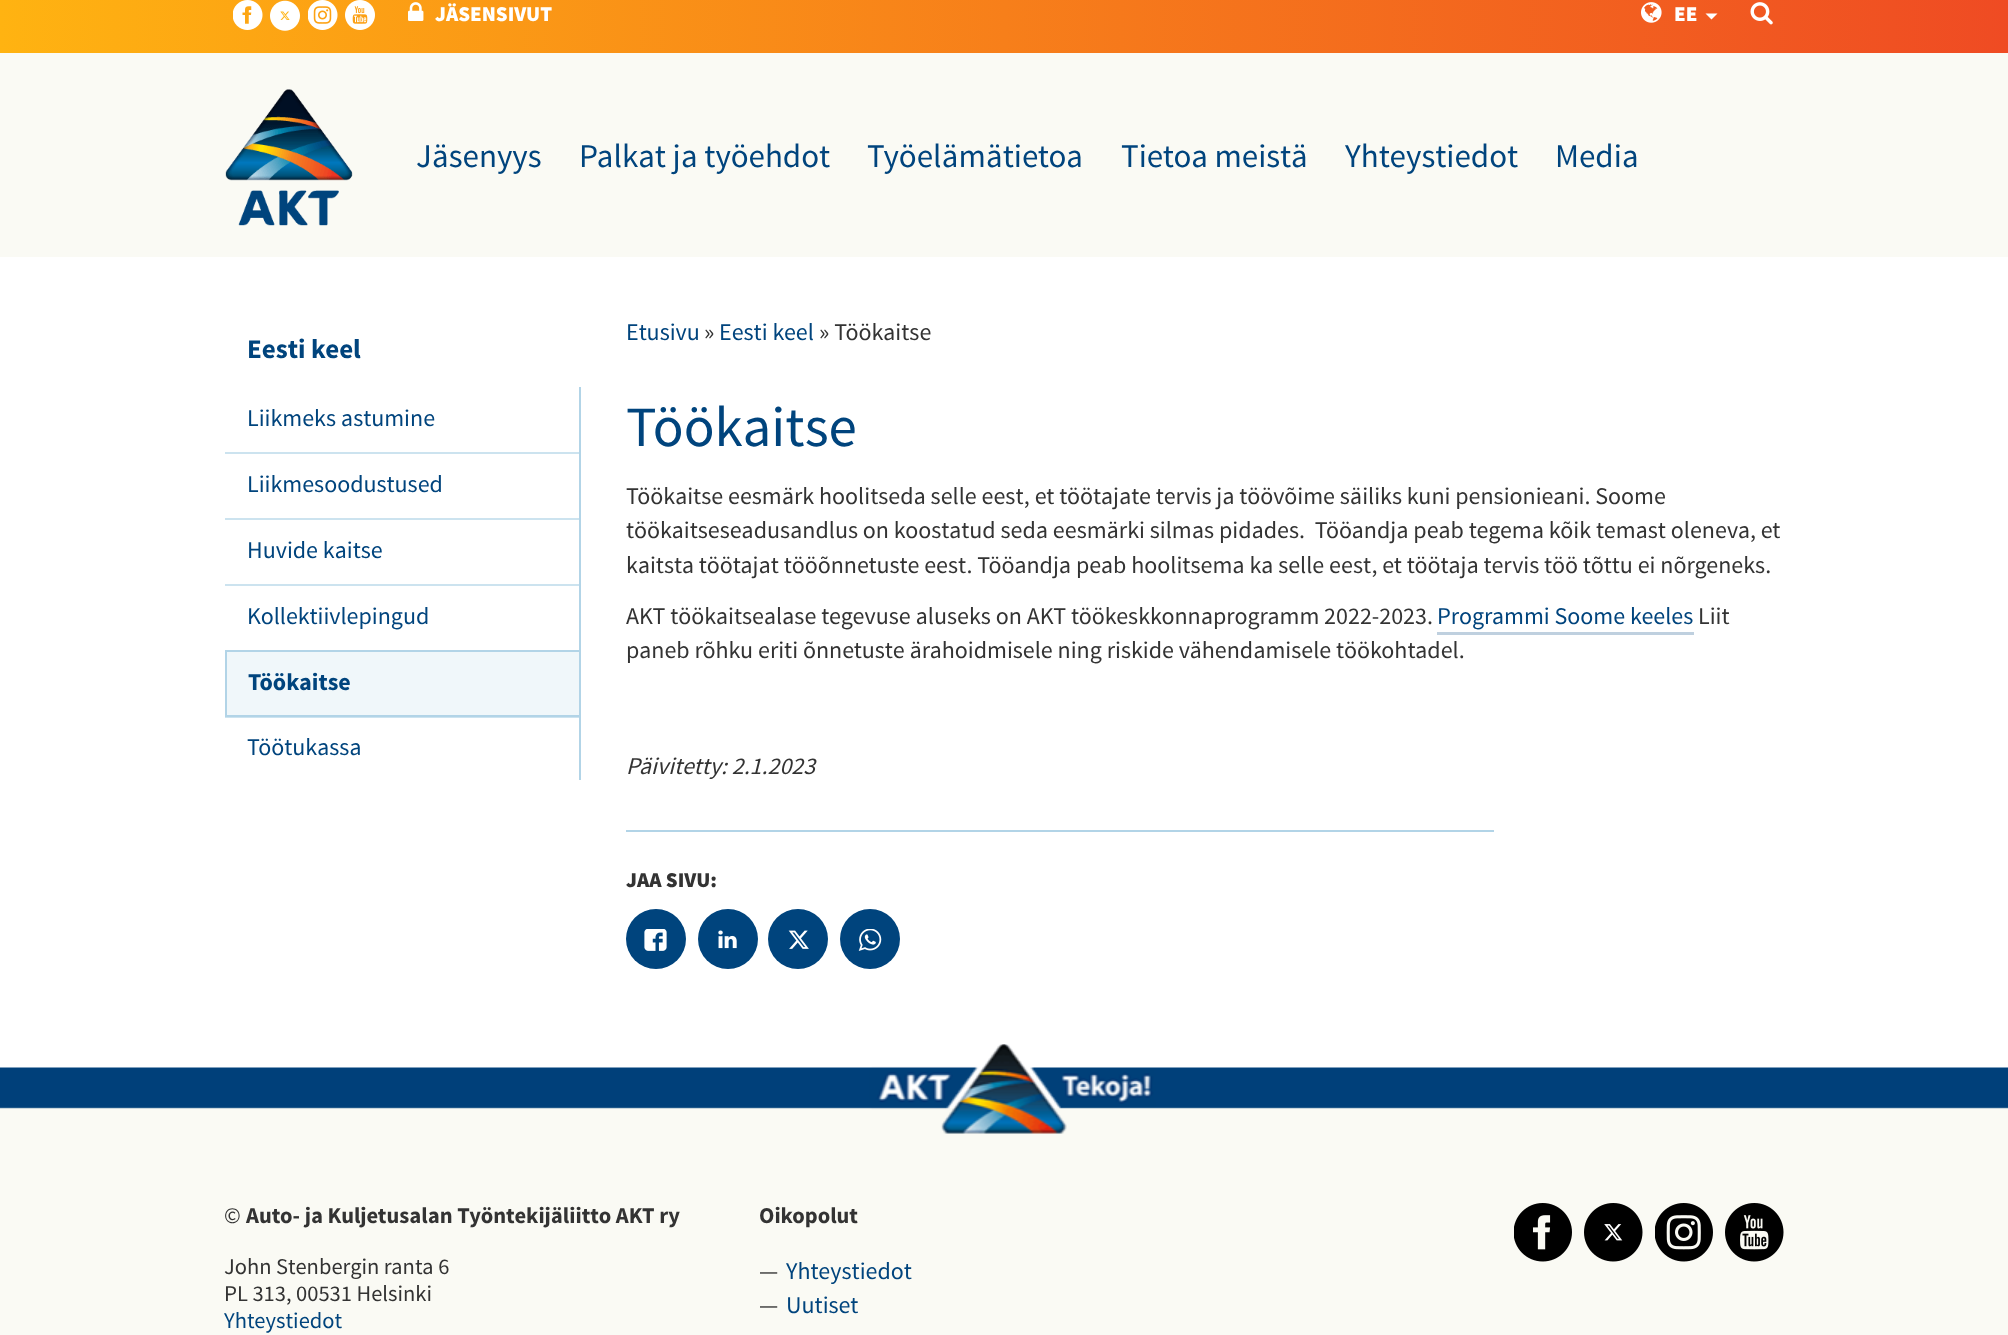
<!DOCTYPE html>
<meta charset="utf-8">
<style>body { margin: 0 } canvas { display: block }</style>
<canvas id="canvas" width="2008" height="1335"></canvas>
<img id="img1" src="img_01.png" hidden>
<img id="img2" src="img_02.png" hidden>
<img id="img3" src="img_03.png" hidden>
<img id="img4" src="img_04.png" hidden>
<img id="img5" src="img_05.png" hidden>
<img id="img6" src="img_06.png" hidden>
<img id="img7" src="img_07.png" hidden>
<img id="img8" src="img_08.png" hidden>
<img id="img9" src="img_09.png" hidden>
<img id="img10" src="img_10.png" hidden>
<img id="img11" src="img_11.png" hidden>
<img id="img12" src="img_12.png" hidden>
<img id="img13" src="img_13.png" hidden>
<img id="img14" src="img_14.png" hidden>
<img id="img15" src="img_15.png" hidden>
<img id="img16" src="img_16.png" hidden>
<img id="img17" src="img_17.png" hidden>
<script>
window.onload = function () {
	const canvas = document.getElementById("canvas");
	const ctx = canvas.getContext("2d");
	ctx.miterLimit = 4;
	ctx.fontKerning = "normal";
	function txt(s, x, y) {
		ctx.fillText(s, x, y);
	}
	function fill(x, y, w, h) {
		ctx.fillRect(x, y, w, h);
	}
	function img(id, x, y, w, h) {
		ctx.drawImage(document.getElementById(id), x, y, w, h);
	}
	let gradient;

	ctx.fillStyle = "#FFFFFF";
	fill(0, 0, 2008, 1335);
	gradient = ctx.createLinearGradient(0, 15, 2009, 15);
	gradient.addColorStop(0, "#FFB311");
	gradient.addColorStop(1, "#EF4B23");
	ctx.fillStyle = gradient;
	fill(0, 0, 2008, 53);
	img("img1", 233, 0, 30, 30);
	img("img2", 270, 0, 30, 31);
	img("img3", 308, 0, 30, 30);
	img("img4", 345, 0, 30, 30);
	img("img5", 408, 2, 16, 19);
	img("img6", 1641, 2, 21, 21);
	ctx.fillStyle = "#FFFFFF";
	ctx.beginPath();
	ctx.moveTo(1705.5, 13.5);
	ctx.lineTo(1717.5, 13.5);
	ctx.lineTo(1711.5, 19.5);
	ctx.closePath();
	ctx.fill();
	img("img7", 1750, 2, 23, 23);
	ctx.fillStyle = "#FAFAF4";
	fill(0, 53, 2008, 204);
	img("img8", 225, 89, 128, 137);
	ctx.fillStyle = "#B2D4E7";
	fill(579, 387, 2, 66);
	ctx.fillStyle = "#CCE3EF";
	fill(225, 452, 356, 2);
	ctx.fillStyle = "#B2D4E7";
	fill(579, 452, 2, 67);
	ctx.fillStyle = "#CCE3EF";
	fill(225, 518, 356, 2);
	ctx.fillStyle = "#B2D4E7";
	fill(579, 518, 2, 67);
	ctx.fillStyle = "#CCE3EF";
	fill(225, 584, 356, 2);
	ctx.fillStyle = "#B2D4E7";
	fill(579, 584, 2, 67);
	ctx.fillStyle = "#CCE3EF";
	fill(225, 717, 356, 1);
	ctx.fillStyle = "#B2D4E7";
	fill(579, 716, 2, 64);
	ctx.fillStyle = "#F0F7FA";
	ctx.beginPath();
	ctx.rect(226, 651, 354, 65);
	ctx.fill();
	ctx.strokeStyle = "#B2D4E7";
	ctx.lineWidth = 2;
	ctx.stroke();
	ctx.fillStyle = "#BFD0DF";
	fill(1437, 632, 257, 3);
	ctx.fillStyle = "#B2D4E7";
	fill(626, 830, 868, 2);
	ctx.fillStyle = "#00447D";
	ctx.beginPath();
	ctx.arc(656, 939, 30, 0, Math.PI * 2);
	ctx.fill();
	img("img9", 644, 929, 23, 22);
	ctx.beginPath();
	ctx.arc(728, 939, 30, 0, Math.PI * 2);
	ctx.fill();
	img("img10", 718, 930, 19, 19);
	ctx.beginPath();
	ctx.arc(798, 939, 30, 0, Math.PI * 2);
	ctx.fill();
	img("img11", 788, 930, 21, 19);
	ctx.beginPath();
	ctx.arc(870, 939, 30, 0, Math.PI * 2);
	ctx.fill();
	img("img12", 858, 929, 24, 22);
	ctx.fillStyle = "#FAFAF4";
	fill(0, 1107, 2008, 228);
	img("img13", 0, 1044, 2008, 90);
	img("img14", 1514, 1203, 58, 59);
	img("img15", 1584, 1203, 59, 59);
	img("img16", 1655, 1203, 58, 59);
	img("img17", 1725, 1203, 59, 59);
	ctx.font = "900 21px Source Sans Pro";
	ctx.fillStyle = "#FFFFFF";
	txt("JÄSENSIVUT", 435, 21);
	txt("EE", 1674, 21);
	ctx.font = "33px Source Sans Pro";
	ctx.fillStyle = "#00447D";
	txt("Jäsenyys", 416, 167);
	txt("Palkat ja työehdot", 579, 167);
	txt("Työelämätietoa", 867, 167);
	txt("Tietoa meistä", 1121, 167);
	txt("Yhteystiedot", 1345, 167);
	txt("Media", 1555, 167);
	ctx.font = "bold 27px Source Sans Pro";
	txt("Eesti keel", 247, 358);
	ctx.font = "24px Source Sans Pro";
	txt("Liikmeks astumine", 247, 426);
	txt("Liikmesoodustused", 247, 492);
	txt("Huvide kaitse", 247, 558);
	txt("Kollektiivlepingud", 247, 624);
	ctx.font = "bold 24px Source Sans Pro";
	txt("Töökaitse", 248, 690);
	ctx.font = "24px Source Sans Pro";
	txt("Töötukassa", 247, 755);
	txt("Etusivu", 626, 340);
	ctx.fillStyle = "#333333";
	txt("»", 704, 340);
	ctx.fillStyle = "#00447D";
	txt("Eesti keel", 719, 340);
	ctx.fillStyle = "#333333";
	txt("» Töökaitse", 819, 340);
	ctx.font = "57px Source Sans Pro";
	ctx.fillStyle = "#00447D";
	txt("Töökaitse", 626, 446);
	ctx.font = "24px Source Sans Pro";
	ctx.fillStyle = "#333333";
	txt("Töökaitse eesmärk hoolitseda selle eest, et töötajate tervis ja töövõime säiliks kuni pensionieani. Soome", 626, 504);
	txt("töökaitseseadusandlus on koostatud seda eesmärki silmas pidades.  Tööandja peab tegema kõik temast oleneva, et", 626, 538);
	txt("kaitsta töötajat tööõnnetuste eest. Tööandja peab hoolitsema ka selle eest, et töötaja tervis töö tõttu ei nõrgeneks.", 626, 573);
	txt("AKT töökaitsealase tegevuse aluseks on AKT töökeskkonnaprogramm 2022-2023.", 626, 624);
	ctx.fillStyle = "#00447D";
	txt("Programmi Soome keeles", 1437, 624);
	ctx.fillStyle = "#333333";
	txt("Liit", 1698, 624);
	txt("paneb rõhku eriti õnnetuste ärahoidmisele ning riskide vähendamisele töökohtadel.", 626, 658);
	ctx.font = "italic 24px Source Sans Pro";
	txt("Päivitetty: 2.1.2023", 626, 774);
	ctx.font = "900 21px Source Sans Pro";
	txt("JAA SIVU:", 626, 887);
	ctx.font = "22.5px Source Sans Pro";
	txt("©", 224, 1223);
	ctx.font = "bold 22.5px Source Sans Pro";
	txt("Auto- ja Kuljetusalan Työntekijäliitto AKT ry", 246, 1223);
	ctx.font = "22.5px Source Sans Pro";
	txt("John Stenbergin ranta 6", 224, 1274);
	txt("PL 313, 00531 Helsinki", 224, 1301);
	ctx.fillStyle = "#00447D";
	txt("Yhteystiedot", 224, 1328);
	ctx.font = "bold 22.5px Source Sans Pro";
	ctx.fillStyle = "#333333";
	txt("Oikopolut", 759, 1223);
	ctx.font = "24px Source Sans Pro";
	txt("—", 759, 1279);
	ctx.fillStyle = "#00447D";
	txt("Yhteystiedot", 786, 1279);
	ctx.fillStyle = "#333333";
	txt("—", 759, 1313);
	ctx.fillStyle = "#00447D";
	txt("Uutiset", 786, 1313);
};
</script>
